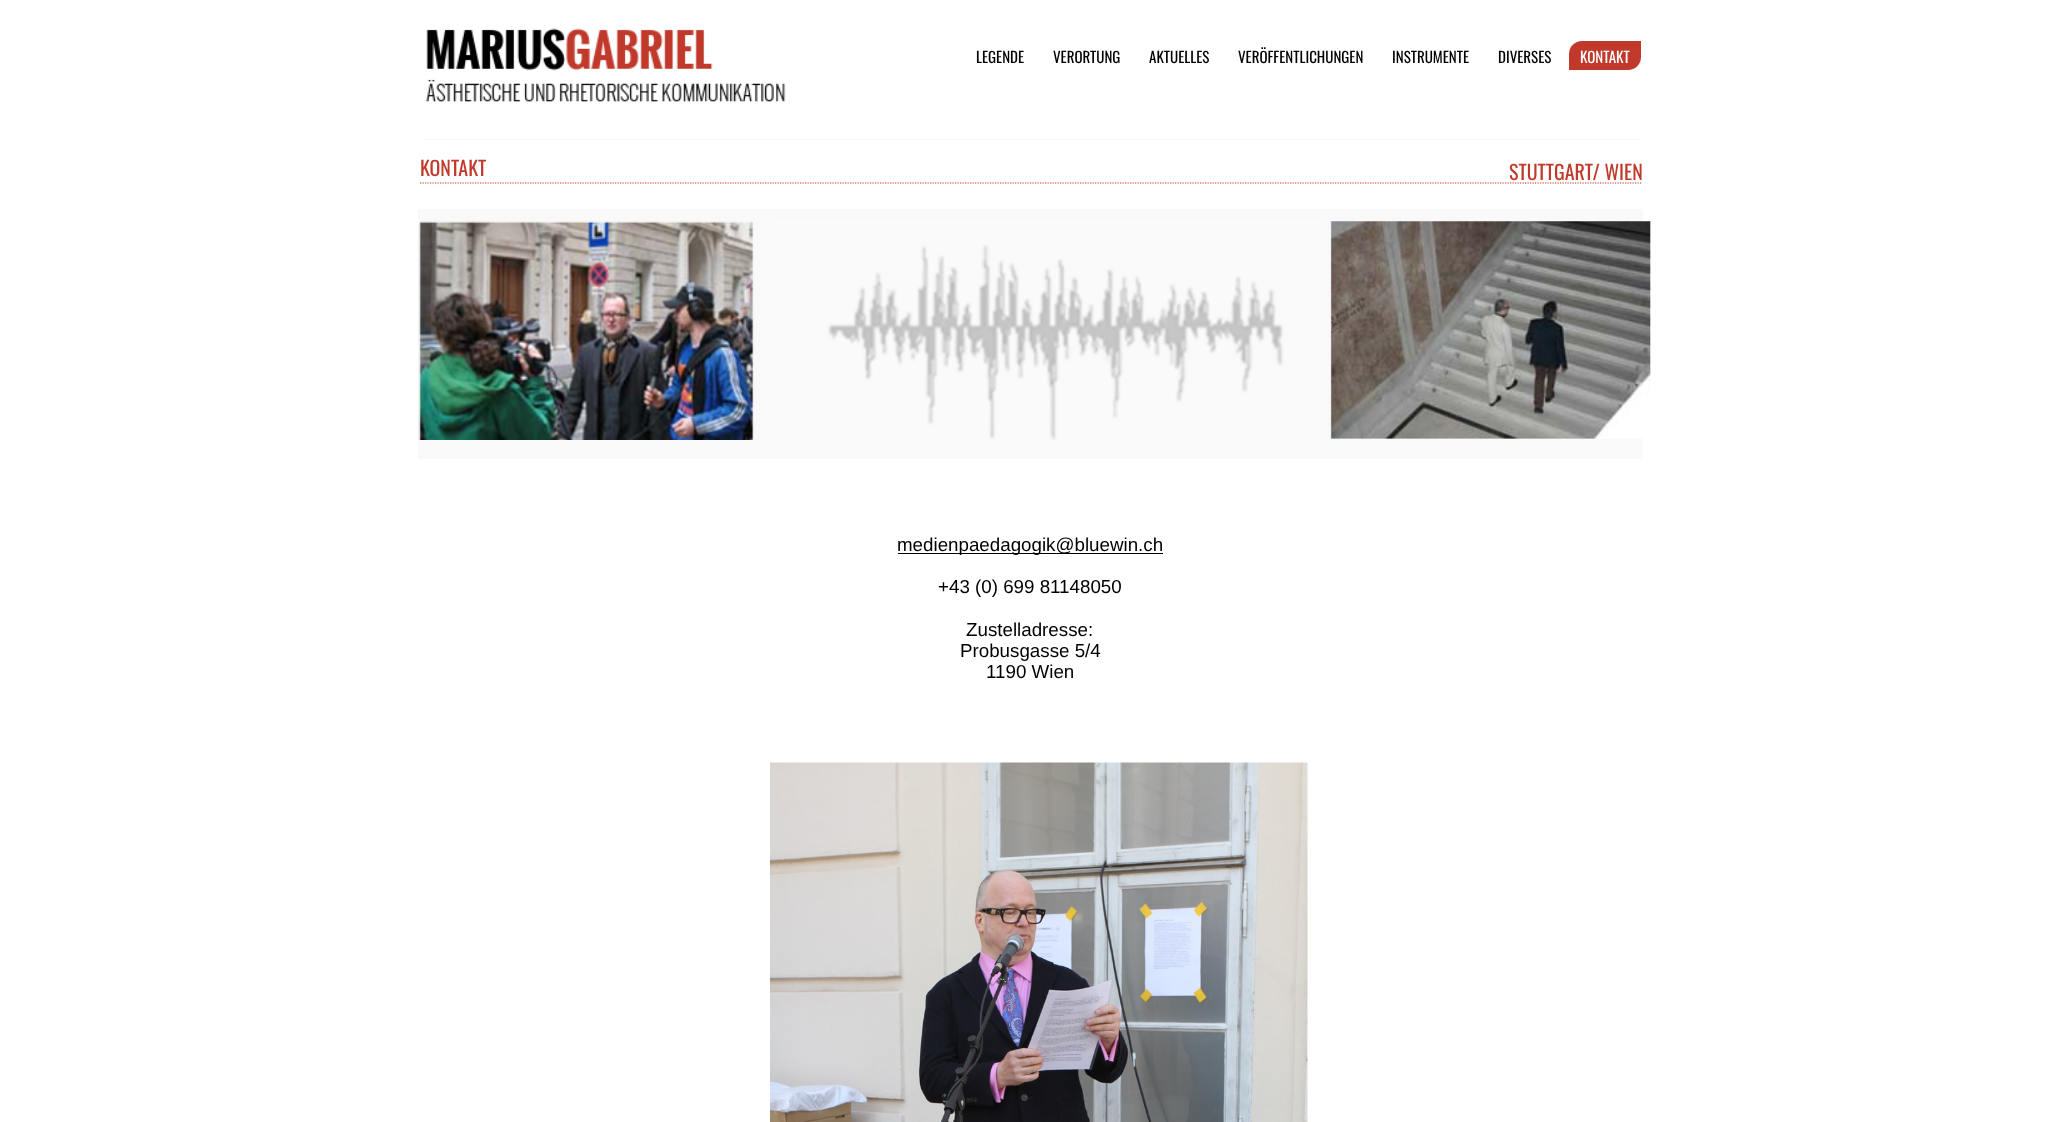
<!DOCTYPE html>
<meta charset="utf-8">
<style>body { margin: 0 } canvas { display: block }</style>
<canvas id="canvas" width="2059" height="1122"></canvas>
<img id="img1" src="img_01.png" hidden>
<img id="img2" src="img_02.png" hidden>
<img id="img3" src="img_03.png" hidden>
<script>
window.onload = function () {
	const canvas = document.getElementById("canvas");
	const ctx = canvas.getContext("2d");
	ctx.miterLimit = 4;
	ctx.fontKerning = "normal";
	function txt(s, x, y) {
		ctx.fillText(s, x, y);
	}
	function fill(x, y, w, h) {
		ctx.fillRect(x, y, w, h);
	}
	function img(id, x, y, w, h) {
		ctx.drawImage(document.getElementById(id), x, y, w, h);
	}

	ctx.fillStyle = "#FFFFFF";
	fill(0, 0, 2059, 1122);
	img("img1", 426, 28, 360, 74);
	ctx.fillStyle = "#C0392B";
	ctx.beginPath();
	ctx.roundRect(1569, 41, 72, 29, [13, 0, 13, 0]);
	ctx.fill();
	ctx.fillStyle = "#F9F9F9";
	fill(420, 139, 1223, 1);
	ctx.beginPath();
	ctx.moveTo(420, 183);
	ctx.lineTo(1642.5, 183);
	ctx.strokeStyle = "#C0392B";
	ctx.lineWidth = 1.2;
	ctx.setLineDash([1.25, 1.25]);
	ctx.stroke();
	fill(418, 209, 1225, 250);
	img("img2", 418, 221, 1233, 219);
	ctx.fillStyle = "#000000";
	fill(898, 553, 265, 1);
	img("img3", 770, 762, 538, 360);
	ctx.font = "15px Oswald";
	txt("LEGENDE", 976, 63);
	txt("VERORTUNG", 1053, 63);
	txt("AKTUELLES", 1149, 63);
	txt("VERÖFFENTLICHUNGEN", 1238, 63);
	txt("INSTRUMENTE", 1392, 63);
	txt("DIVERSES", 1498, 63);
	ctx.fillStyle = "#FFFFFF";
	txt("KONTAKT", 1580, 63);
	ctx.font = "20px Oswald";
	ctx.fillStyle = "#C0392B";
	txt("KONTAKT", 420, 176);
	txt("STUTTGART/ WIEN", 1509, 180);
	ctx.font = "18.75px Liberation Sans";
	ctx.fillStyle = "#000000";
	txt("medienpaedagogik@bluewin.ch", 897, 551);
	txt("+43 (0) 699 81148050", 938, 593);
	txt("Zustelladresse:", 966, 636);
	txt("Probusgasse 5/4", 960, 657);
	txt("1190 Wien", 986, 678);
};
</script>
